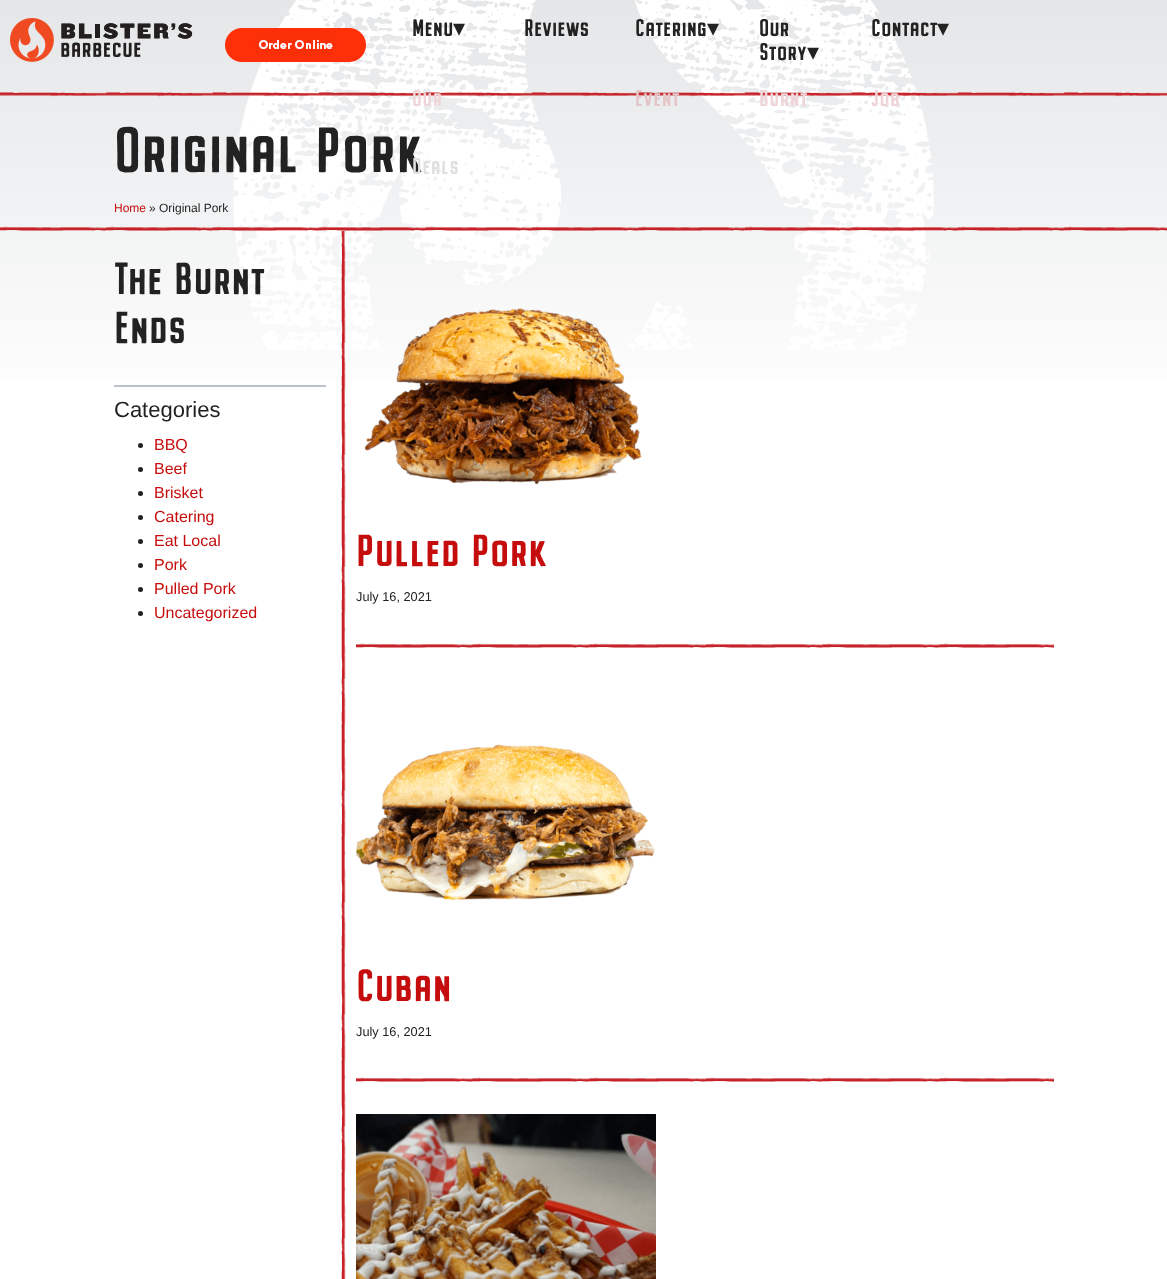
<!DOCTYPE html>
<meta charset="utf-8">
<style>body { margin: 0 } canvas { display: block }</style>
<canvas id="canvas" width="1167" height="1279"></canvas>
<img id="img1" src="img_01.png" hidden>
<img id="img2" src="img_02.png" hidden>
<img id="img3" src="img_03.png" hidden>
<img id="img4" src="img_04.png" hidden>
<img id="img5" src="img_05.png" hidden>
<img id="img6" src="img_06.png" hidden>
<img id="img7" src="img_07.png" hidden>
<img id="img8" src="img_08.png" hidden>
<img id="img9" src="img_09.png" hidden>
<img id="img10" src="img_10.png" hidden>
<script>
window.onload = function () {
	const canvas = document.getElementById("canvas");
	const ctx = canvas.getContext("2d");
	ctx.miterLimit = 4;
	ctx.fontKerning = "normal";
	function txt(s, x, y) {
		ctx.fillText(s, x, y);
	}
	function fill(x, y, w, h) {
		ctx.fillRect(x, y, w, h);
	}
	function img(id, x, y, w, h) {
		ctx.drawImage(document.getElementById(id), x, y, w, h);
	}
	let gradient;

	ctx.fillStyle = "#FFFFFF";
	fill(0, 0, 1167, 1279);
	gradient = ctx.createLinearGradient(584, 0, 584, 420);
	gradient.addColorStop(0, "#E4E6E8");
	gradient.addColorStop(1, "#FFFFFF");
	ctx.fillStyle = gradient;
	fill(0, 0, 1167, 381);
	img("img1", 233, 0, 701, 350);
	img("img2", 0, 92, 1167, 139);
	img("img3", 10, 18, 183, 44);
	img("img4", 225, 28, 141, 34);
	ctx.fillStyle = "#BCC2CD";
	fill(114, 385, 212, 2);
	ctx.fillStyle = "#222222";
	ctx.beginPath();
	ctx.arc(140.5, 445.5, 2.5, 0, Math.PI * 2);
	ctx.fill();
	ctx.beginPath();
	ctx.arc(140.5, 469.5, 2.5, 0, Math.PI * 2);
	ctx.fill();
	ctx.beginPath();
	ctx.arc(140.5, 493.5, 2.5, 0, Math.PI * 2);
	ctx.fill();
	ctx.beginPath();
	ctx.arc(140.5, 517.5, 2.5, 0, Math.PI * 2);
	ctx.fill();
	ctx.beginPath();
	ctx.arc(140.5, 541.5, 2.5, 0, Math.PI * 2);
	ctx.fill();
	ctx.beginPath();
	ctx.arc(140.5, 565.5, 2.5, 0, Math.PI * 2);
	ctx.fill();
	ctx.beginPath();
	ctx.arc(140.5, 589.5, 2.5, 0, Math.PI * 2);
	ctx.fill();
	ctx.beginPath();
	ctx.arc(140.5, 613.5, 2.5, 0, Math.PI * 2);
	ctx.fill();
	img("img5", 341, 231, 5, 1048);
	img("img6", 356, 643, 698, 5);
	img("img7", 364, 308, 278, 177);
	img("img8", 356, 1077, 698, 5);
	img("img9", 356, 744, 299, 156);
	img("img10", 356, 1114, 300, 165);
	ctx.font = "64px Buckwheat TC";
	txt("Original Pork", 114, 172);
	ctx.font = "12px Liberation Sans";
	ctx.fillStyle = "#C60D0D";
	txt("Home", 114, 212);
	ctx.fillStyle = "#222222";
	txt("» Original Pork", 149, 212);
	ctx.font = "24px Buckwheat TC";
	txt("Menu", 412, 36);
	ctx.font = "24px DejaVu Sans";
	txt("▾", 453, 36);
	ctx.letterSpacing = "0.5px";
	ctx.font = "23px Buckwheat TC";
	ctx.fillStyle = "#EFD5D7";
	txt("Our", 412, 106);
	ctx.fillStyle = "#DFE0E0";
	txt("Deals", 412, 174);
	ctx.letterSpacing = "0px";
	ctx.font = "24px Buckwheat TC";
	ctx.fillStyle = "#222222";
	txt("Reviews", 524, 36);
	txt("Catering", 635, 36);
	ctx.font = "24px DejaVu Sans";
	txt("▾", 707, 36);
	ctx.letterSpacing = "0.5px";
	ctx.font = "23px Buckwheat TC";
	ctx.fillStyle = "#E4C6C9";
	txt("Event", 635, 106);
	ctx.letterSpacing = "0px";
	ctx.font = "24px Buckwheat TC";
	ctx.fillStyle = "#222222";
	txt("Our", 759, 36);
	txt("Story", 759, 60);
	ctx.font = "24px DejaVu Sans";
	txt("▾", 807, 60);
	ctx.letterSpacing = "0.5px";
	ctx.font = "23px Buckwheat TC";
	ctx.fillStyle = "#EFD5D7";
	txt("Burnt", 759, 106);
	ctx.letterSpacing = "0px";
	ctx.font = "24px Buckwheat TC";
	ctx.fillStyle = "#222222";
	txt("Contact", 871, 36);
	ctx.font = "24px DejaVu Sans";
	txt("▾", 937, 36);
	ctx.letterSpacing = "0.5px";
	ctx.font = "23px Buckwheat TC";
	ctx.fillStyle = "#EFD5D7";
	txt("Job", 871, 106);
	ctx.letterSpacing = "0px";
	ctx.font = "45px Buckwheat TC";
	ctx.fillStyle = "#222222";
	txt("The Burnt", 114, 294);
	txt("Ends", 114, 343);
	ctx.font = "22px Liberation Sans";
	txt("Categories", 114, 417);
	ctx.font = "16px Liberation Sans";
	ctx.fillStyle = "#C60D0D";
	txt("BBQ", 154, 450);
	txt("Beef", 154, 474);
	txt("Brisket", 154, 498);
	txt("Catering", 154, 522);
	txt("Eat Local", 154, 546);
	txt("Pork", 154, 570);
	txt("Pulled Pork", 154, 594);
	txt("Uncategorized", 154, 618);
	ctx.font = "45px Buckwheat TC";
	txt("Pulled Pork", 356, 566);
	ctx.font = "12.75px Liberation Sans";
	ctx.fillStyle = "#222222";
	txt("July 16, 2021", 356, 601);
	ctx.font = "45px Buckwheat TC";
	ctx.fillStyle = "#C60D0D";
	txt("Cuban", 356, 1001);
	ctx.font = "12.75px Liberation Sans";
	ctx.fillStyle = "#222222";
	txt("July 16, 2021", 356, 1036);
};
</script>
